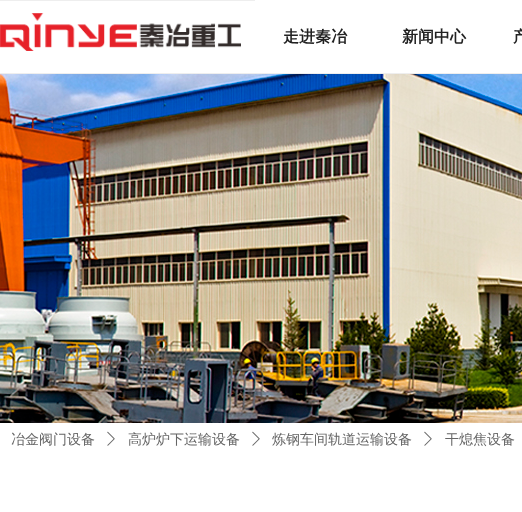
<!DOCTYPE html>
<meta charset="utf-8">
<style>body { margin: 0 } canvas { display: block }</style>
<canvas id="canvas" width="522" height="512"></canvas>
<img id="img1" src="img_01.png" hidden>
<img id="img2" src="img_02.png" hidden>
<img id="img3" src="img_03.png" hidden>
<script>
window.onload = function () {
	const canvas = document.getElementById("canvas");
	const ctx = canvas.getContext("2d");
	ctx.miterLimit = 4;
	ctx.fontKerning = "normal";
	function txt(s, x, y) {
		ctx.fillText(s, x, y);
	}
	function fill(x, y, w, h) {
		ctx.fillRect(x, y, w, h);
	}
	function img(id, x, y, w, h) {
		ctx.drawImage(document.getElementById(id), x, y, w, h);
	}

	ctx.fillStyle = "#FFFFFF";
	fill(0, 0, 522, 512);
	ctx.fillStyle = "#EEEEEE";
	fill(0, 0, 255, 1);
	fill(0, 73, 522, 1);
	img("img1", 0, 13, 241, 38);
	img("img2", 0, 74, 522, 349);
	img("img3", 107, 431, 8, 15);
	img("img3", 252, 431, 8, 15);
	img("img3", 424, 431, 8, 15);
	ctx.font = "bold 16px WenQuanYi Zen Hei";
	ctx.fillStyle = "#222222";
	txt("走进秦冶", 283, 42);
	txt("新闻中心", 402, 42);
	txt("产", 513, 42);
	ctx.font = "500 14px WenQuanYi Zen Hei";
	ctx.fillStyle = "#666666";
	txt("冶金阀门设备", 11, 444);
	txt("高炉炉下运输设备", 128, 444);
	txt("炼钢车间轨道运输设备", 272, 444);
	txt("干熄焦设备", 445, 444);
};
</script>
